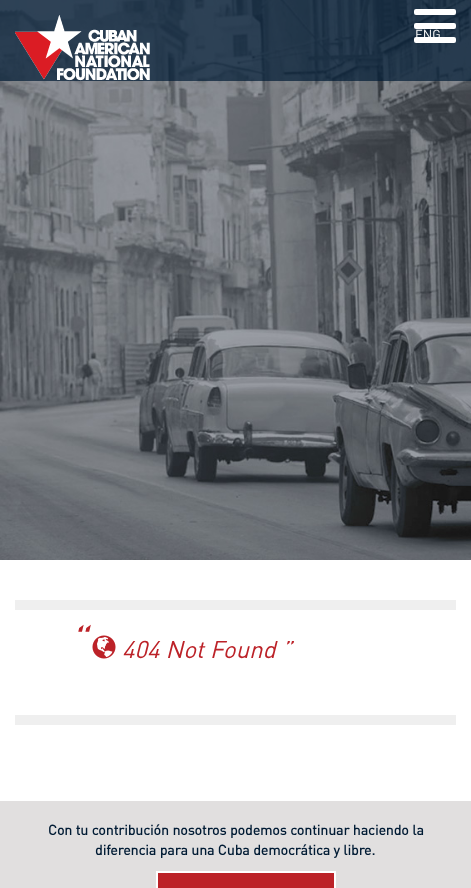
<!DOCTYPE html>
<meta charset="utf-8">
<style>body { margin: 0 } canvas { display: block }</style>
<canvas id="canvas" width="471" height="888"></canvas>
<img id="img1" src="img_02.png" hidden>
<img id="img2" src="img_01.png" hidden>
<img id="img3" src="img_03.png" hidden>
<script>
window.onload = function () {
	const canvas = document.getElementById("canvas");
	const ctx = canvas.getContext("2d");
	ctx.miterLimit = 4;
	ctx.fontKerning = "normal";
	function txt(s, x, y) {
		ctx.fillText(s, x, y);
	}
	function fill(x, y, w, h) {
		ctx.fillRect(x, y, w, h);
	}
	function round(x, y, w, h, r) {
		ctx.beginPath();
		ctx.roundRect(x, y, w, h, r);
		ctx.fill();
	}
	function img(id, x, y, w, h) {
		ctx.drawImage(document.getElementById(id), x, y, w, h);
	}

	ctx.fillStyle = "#FFFFFF";
	fill(0, 0, 471, 888);
	img("img1", 0, 0, 471, 560);
	ctx.fillStyle = "rgba(0, 27, 52, 0.7)";
	fill(0, 0, 471, 81);
	img("img2", 15, 15, 135, 66);
	ctx.fillStyle = "#FFFFFF";
	round(414, 9, 42, 6, 2);
	round(414, 23, 42, 6, 2);
	round(414, 37, 42, 6, 2);
	ctx.fillStyle = "#EFEFEF";
	fill(15, 600, 441, 10);
	fill(15, 715, 441, 10);
	img("img3", 92, 635, 24, 24);
	ctx.fillStyle = "#E1DFDF";
	fill(0, 801, 471, 87);
	ctx.fillStyle = "#BC2228";
	ctx.beginPath();
	ctx.rect(157, 872, 178, 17);
	ctx.fill();
	ctx.strokeStyle = "#FFFFFF";
	ctx.lineWidth = 2;
	ctx.stroke();
	ctx.font = "13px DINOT";
	ctx.fillStyle = "#FFFFFF";
	txt("ENG", 415, 39);
	ctx.font = "italic 42px DINOT";
	ctx.fillStyle = "#BC2228";
	txt("“", 68, 658);
	ctx.font = "italic 24px DINOT";
	txt("404 Not Found ”", 122, 658);
	ctx.font = "bold 14px DINOT";
	ctx.fillStyle = "#001B34";
	txt("Con tu contribución nosotros podemos continuar haciendo la", 48, 835);
	txt("diferencia para una Cuba democrática y libre.", 95, 855);
};
</script>
